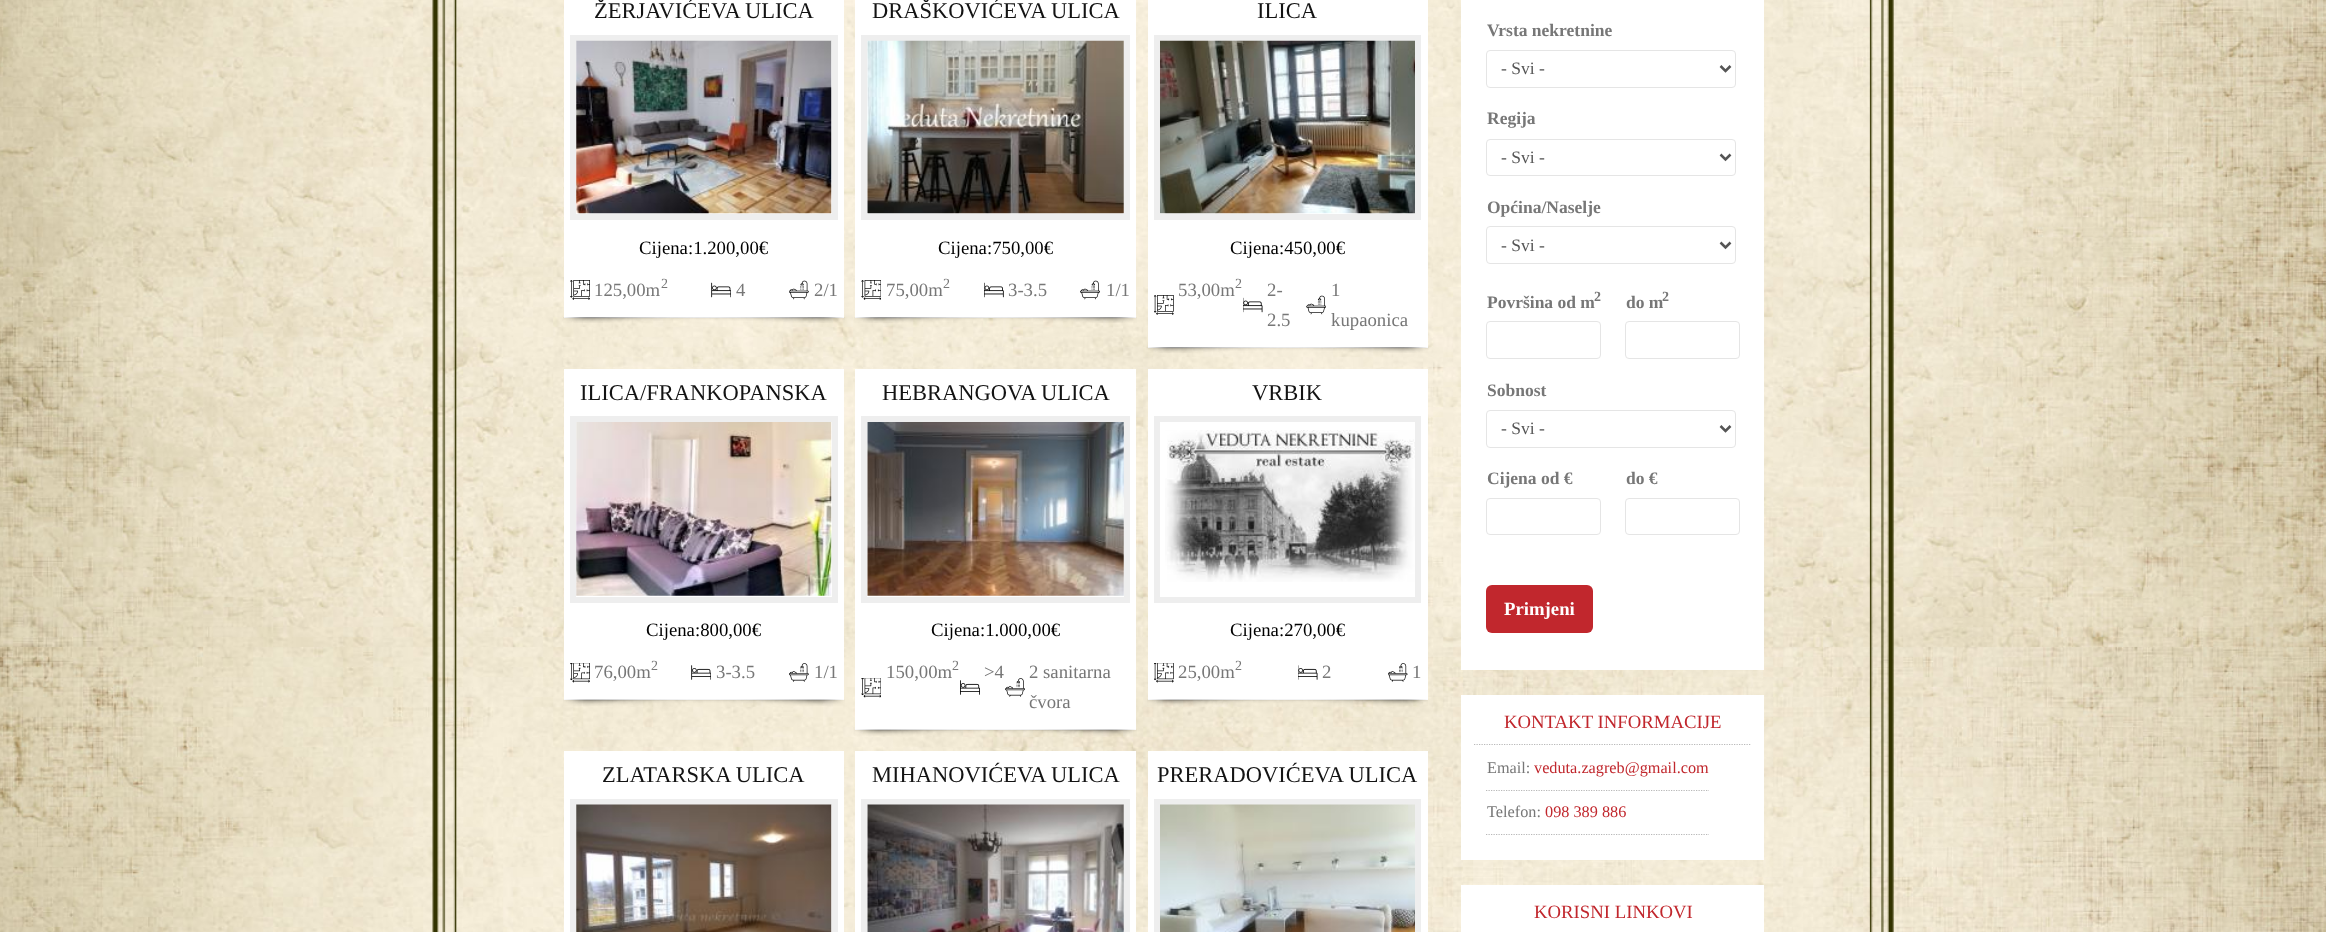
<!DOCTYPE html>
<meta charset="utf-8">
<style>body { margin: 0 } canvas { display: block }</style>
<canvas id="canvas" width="2326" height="932"></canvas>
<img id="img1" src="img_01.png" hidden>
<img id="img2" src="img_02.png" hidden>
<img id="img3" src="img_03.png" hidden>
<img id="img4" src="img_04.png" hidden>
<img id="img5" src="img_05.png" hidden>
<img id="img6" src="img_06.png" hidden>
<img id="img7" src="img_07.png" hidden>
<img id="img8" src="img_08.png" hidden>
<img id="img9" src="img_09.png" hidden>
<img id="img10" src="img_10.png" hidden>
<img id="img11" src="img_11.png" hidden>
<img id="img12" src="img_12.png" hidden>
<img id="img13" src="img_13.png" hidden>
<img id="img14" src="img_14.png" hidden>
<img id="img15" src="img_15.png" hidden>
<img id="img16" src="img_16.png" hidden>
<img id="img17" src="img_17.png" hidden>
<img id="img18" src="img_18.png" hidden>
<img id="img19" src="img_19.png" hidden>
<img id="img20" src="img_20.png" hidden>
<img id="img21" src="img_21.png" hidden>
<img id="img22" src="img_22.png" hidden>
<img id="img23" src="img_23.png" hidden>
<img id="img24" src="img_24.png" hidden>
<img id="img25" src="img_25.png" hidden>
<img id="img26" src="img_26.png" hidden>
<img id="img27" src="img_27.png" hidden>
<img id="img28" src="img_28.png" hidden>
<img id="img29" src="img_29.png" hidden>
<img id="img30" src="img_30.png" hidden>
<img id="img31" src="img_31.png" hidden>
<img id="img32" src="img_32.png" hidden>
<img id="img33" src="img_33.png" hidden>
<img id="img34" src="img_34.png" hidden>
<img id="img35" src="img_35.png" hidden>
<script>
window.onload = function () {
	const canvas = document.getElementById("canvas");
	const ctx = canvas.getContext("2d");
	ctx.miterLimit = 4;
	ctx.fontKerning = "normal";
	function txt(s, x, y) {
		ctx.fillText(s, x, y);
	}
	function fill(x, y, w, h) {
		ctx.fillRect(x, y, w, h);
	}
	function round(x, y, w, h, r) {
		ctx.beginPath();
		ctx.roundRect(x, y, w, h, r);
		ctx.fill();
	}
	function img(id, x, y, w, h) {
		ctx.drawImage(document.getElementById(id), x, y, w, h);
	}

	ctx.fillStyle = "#FFFFFF";
	fill(0, 0, 2326, 932);
	img("img1", 0, 0, 2326, 932);
	img("img2", 432, 0, 1462, 932);
	fill(564, 0, 280, 318);
	ctx.strokeStyle = "#EEEEEE";
	ctx.lineWidth = 6;
	ctx.strokeRect(573, 38, 262, 179);
	img("img3", 576, 40, 256, 174);
	img("img4", 570, 280, 20, 20);
	img("img5", 711, 282, 20, 16);
	img("img6", 789, 280, 20, 20);
	img("img7", 563, 317, 282, 6);
	fill(855, 0, 281, 318);
	ctx.strokeRect(864, 38, 263, 179);
	img("img8", 867, 40, 257, 174);
	img("img9", 861, 280, 20, 20);
	img("img10", 984, 282, 20, 16);
	img("img11", 1080, 280, 20, 20);
	img("img12", 854, 317, 283, 6);
	fill(1148, 0, 280, 348);
	ctx.strokeRect(1157, 38, 261, 179);
	img("img13", 1160, 40, 255, 174);
	img("img14", 1154, 295, 20, 20);
	img("img15", 1243, 297, 20, 16);
	img("img16", 1306, 295, 20, 20);
	img("img17", 1146, 347, 283, 6);
	fill(564, 369, 280, 331);
	ctx.strokeRect(573, 419, 262, 181);
	img("img18", 576, 422, 256, 174);
	img("img19", 570, 663, 20, 20);
	img("img20", 691, 665, 20, 15);
	img("img21", 789, 663, 20, 19);
	img("img22", 563, 699, 282, 7);
	fill(855, 369, 281, 361);
	ctx.strokeRect(864, 419, 263, 181);
	img("img23", 867, 422, 257, 174);
	img("img24", 861, 678, 20, 20);
	img("img25", 960, 680, 20, 15);
	img("img26", 1005, 678, 20, 19);
	img("img27", 854, 729, 283, 7);
	fill(1148, 369, 280, 331);
	ctx.strokeRect(1157, 419, 261, 181);
	img("img28", 1165, 430, 250, 152);
	img("img29", 1154, 663, 20, 20);
	img("img30", 1298, 665, 20, 15);
	img("img31", 1388, 663, 20, 19);
	img("img32", 1147, 699, 281, 7);
	fill(564, 751, 280, 181);
	ctx.strokeRect(573, 802, 262, 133);
	img("img33", 576, 804, 256, 128);
	fill(855, 751, 281, 181);
	ctx.strokeRect(864, 802, 263, 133);
	img("img34", 867, 804, 257, 128);
	fill(1148, 751, 280, 181);
	ctx.strokeRect(1157, 802, 261, 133);
	img("img35", 1160, 804, 255, 128);
	fill(1461, 0, 303, 670);
	ctx.beginPath();
	ctx.roundRect(1486.5, 50.5, 249, 37, 3.5);
	ctx.strokeStyle = "#E5E5E5";
	ctx.lineWidth = 1;
	ctx.stroke();
	ctx.beginPath();
	ctx.moveTo(1720.5, 66);
	ctx.lineTo(1725.5, 71);
	ctx.lineTo(1730.5, 66);
	ctx.strokeStyle = "#555555";
	ctx.lineWidth = 2.5;
	ctx.stroke();
	ctx.beginPath();
	ctx.roundRect(1486.5, 139.5, 249, 36, 3.5);
	ctx.strokeStyle = "#E5E5E5";
	ctx.lineWidth = 1;
	ctx.stroke();
	ctx.beginPath();
	ctx.moveTo(1720.5, 154.5);
	ctx.lineTo(1725.5, 159.5);
	ctx.lineTo(1730.5, 154.5);
	ctx.strokeStyle = "#555555";
	ctx.lineWidth = 2.5;
	ctx.stroke();
	ctx.beginPath();
	ctx.roundRect(1486.5, 226.5, 249, 37, 3.5);
	ctx.strokeStyle = "#E5E5E5";
	ctx.lineWidth = 1;
	ctx.stroke();
	ctx.beginPath();
	ctx.moveTo(1720.5, 242.5);
	ctx.lineTo(1725.5, 247.5);
	ctx.lineTo(1730.5, 242.5);
	ctx.strokeStyle = "#555555";
	ctx.lineWidth = 2.5;
	ctx.stroke();
	ctx.beginPath();
	ctx.roundRect(1486.5, 321.5, 114, 37, 3.5);
	ctx.strokeStyle = "#E5E5E5";
	ctx.lineWidth = 1;
	ctx.stroke();
	ctx.beginPath();
	ctx.roundRect(1625.5, 321.5, 114, 37, 3.5);
	ctx.stroke();
	ctx.beginPath();
	ctx.roundRect(1486.5, 410.5, 249, 37, 3.5);
	ctx.stroke();
	ctx.beginPath();
	ctx.moveTo(1720.5, 426);
	ctx.lineTo(1725.5, 431);
	ctx.lineTo(1730.5, 426);
	ctx.strokeStyle = "#555555";
	ctx.lineWidth = 2.5;
	ctx.stroke();
	ctx.beginPath();
	ctx.roundRect(1486.5, 498.5, 114, 36, 3.5);
	ctx.strokeStyle = "#E5E5E5";
	ctx.lineWidth = 1;
	ctx.stroke();
	ctx.beginPath();
	ctx.roundRect(1625.5, 498.5, 114, 36, 3.5);
	ctx.stroke();
	ctx.fillStyle = "#C1272D";
	round(1486, 585, 107, 48, 6);
	ctx.fillStyle = "#FFFFFF";
	fill(1461, 695, 303, 165);
	ctx.beginPath();
	ctx.moveTo(1474, 744.5);
	ctx.lineTo(1751, 744.5);
	ctx.strokeStyle = "#B9B9B9";
	ctx.lineWidth = 1.2;
	ctx.setLineDash([1.25, 1.25]);
	ctx.stroke();
	ctx.beginPath();
	ctx.moveTo(1486, 790.5);
	ctx.lineTo(1709, 790.5);
	ctx.strokeStyle = "#B8B8B8";
	ctx.stroke();
	ctx.beginPath();
	ctx.moveTo(1486, 834.5);
	ctx.lineTo(1709, 834.5);
	ctx.stroke();
	fill(1461, 885, 303, 47);
	ctx.font = "22.5px Liberation Serif";
	ctx.fillStyle = "#131313";
	txt("ŽERJAVIĆEVA ULICA", 594, 18);
	ctx.font = "18.75px Liberation Serif";
	ctx.fillStyle = "#000000";
	txt("Cijena:1.200,00€", 639, 254);
	ctx.fillStyle = "#777777";
	txt("125,00m", 594, 296);
	ctx.font = "14px Liberation Serif";
	txt("2", 661, 288);
	ctx.font = "18.75px Liberation Serif";
	txt("4", 736, 296);
	txt("2/1", 814, 296);
	ctx.font = "22.5px Liberation Serif";
	ctx.fillStyle = "#131313";
	txt("DRAŠKOVIĆEVA ULICA", 872, 18);
	ctx.font = "18.75px Liberation Serif";
	ctx.fillStyle = "#000000";
	txt("Cijena:750,00€", 938, 254);
	ctx.fillStyle = "#777777";
	txt("75,00m", 886, 296);
	ctx.font = "14px Liberation Serif";
	txt("2", 943, 288);
	ctx.font = "18.75px Liberation Serif";
	txt("3-3.5", 1008, 296);
	txt("1/1", 1106, 296);
	ctx.font = "22.5px Liberation Serif";
	ctx.fillStyle = "#131313";
	txt("ILICA", 1257, 18);
	ctx.font = "18.75px Liberation Serif";
	ctx.fillStyle = "#000000";
	txt("Cijena:450,00€", 1230, 254);
	ctx.fillStyle = "#777777";
	txt("53,00m", 1178, 296);
	ctx.font = "14px Liberation Serif";
	txt("2", 1235, 288);
	ctx.font = "18.75px Liberation Serif";
	txt("2-", 1267, 296);
	txt("2.5", 1267, 326);
	txt("1", 1331, 296);
	txt("kupaonica", 1331, 326);
	ctx.font = "22.5px Liberation Serif";
	ctx.fillStyle = "#131313";
	txt("ILICA/FRANKOPANSKA", 580, 400);
	ctx.font = "18.75px Liberation Serif";
	ctx.fillStyle = "#000000";
	txt("Cijena:800,00€", 646, 636);
	ctx.fillStyle = "#777777";
	txt("76,00m", 594, 678);
	ctx.font = "14px Liberation Serif";
	txt("2", 651, 670);
	ctx.font = "18.75px Liberation Serif";
	txt("3-3.5", 716, 678);
	txt("1/1", 814, 678);
	ctx.font = "22.5px Liberation Serif";
	ctx.fillStyle = "#131313";
	txt("HEBRANGOVA ULICA", 882, 400);
	ctx.font = "18.75px Liberation Serif";
	ctx.fillStyle = "#000000";
	txt("Cijena:1.000,00€", 931, 636);
	ctx.fillStyle = "#777777";
	txt("150,00m", 886, 678);
	ctx.font = "14px Liberation Serif";
	txt("2", 952, 670);
	ctx.font = "18.75px Liberation Serif";
	txt(">4", 984, 678);
	txt("2 sanitarna", 1029, 678);
	txt("čvora", 1029, 708);
	ctx.font = "22.5px Liberation Serif";
	ctx.fillStyle = "#131313";
	txt("VRBIK", 1252, 400);
	ctx.font = "18.75px Liberation Serif";
	ctx.fillStyle = "#000000";
	txt("Cijena:270,00€", 1230, 636);
	ctx.fillStyle = "#777777";
	txt("25,00m", 1178, 678);
	ctx.font = "14px Liberation Serif";
	txt("2", 1235, 670);
	ctx.font = "18.75px Liberation Serif";
	txt("2", 1322, 678);
	txt("1", 1412, 678);
	ctx.font = "22.5px Liberation Serif";
	ctx.fillStyle = "#131313";
	txt("ZLATARSKA ULICA", 602, 782);
	txt("MIHANOVIĆEVA ULICA", 872, 782);
	txt("PRERADOVIĆEVA ULICA", 1157, 782);
	ctx.font = "bold 17.5px Liberation Serif";
	ctx.fillStyle = "#777777";
	txt("Vrsta nekretnine", 1487, 36);
	ctx.font = "17.5px Liberation Serif";
	ctx.fillStyle = "#555555";
	txt("- Svi -", 1501, 74);
	ctx.font = "bold 17.5px Liberation Serif";
	ctx.fillStyle = "#777777";
	txt("Regija", 1487, 124);
	ctx.font = "17.5px Liberation Serif";
	ctx.fillStyle = "#555555";
	txt("- Svi -", 1501, 163);
	ctx.font = "bold 17.5px Liberation Serif";
	ctx.fillStyle = "#777777";
	txt("Općina/Naselje", 1487, 213);
	ctx.font = "17.5px Liberation Serif";
	ctx.fillStyle = "#555555";
	txt("- Svi -", 1501, 251);
	ctx.font = "bold 17.5px Liberation Serif";
	ctx.fillStyle = "#777777";
	txt("Površina od m", 1487, 308);
	ctx.font = "bold 14px Liberation Serif";
	txt("2", 1594, 301);
	ctx.font = "bold 17.5px Liberation Serif";
	txt("do m", 1626, 308);
	ctx.font = "bold 14px Liberation Serif";
	txt("2", 1662, 301);
	ctx.font = "bold 17.5px Liberation Serif";
	txt("Sobnost", 1487, 396);
	ctx.font = "17.5px Liberation Serif";
	ctx.fillStyle = "#555555";
	txt("- Svi -", 1501, 434);
	ctx.font = "bold 17.5px Liberation Serif";
	ctx.fillStyle = "#777777";
	txt("Cijena od €", 1487, 484);
	txt("do €", 1626, 484);
	ctx.font = "bold 18.75px Liberation Serif";
	ctx.fillStyle = "#FFFFFF";
	txt("Primjeni", 1504, 615);
	ctx.font = "18.75px Liberation Serif";
	ctx.fillStyle = "#C1272D";
	txt("KONTAKT INFORMACIJE", 1504, 728);
	ctx.font = "16.25px Liberation Serif";
	ctx.fillStyle = "#777777";
	txt("Email:", 1487, 773);
	ctx.fillStyle = "#C1272D";
	txt("veduta.zagreb@gmail.com", 1534, 773);
	ctx.fillStyle = "#777777";
	txt("Telefon:", 1487, 817);
	ctx.fillStyle = "#C1272D";
	txt("098 389 886", 1545, 817);
	ctx.font = "18.75px Liberation Serif";
	txt("KORISNI LINKOVI", 1534, 918);
};
</script>
